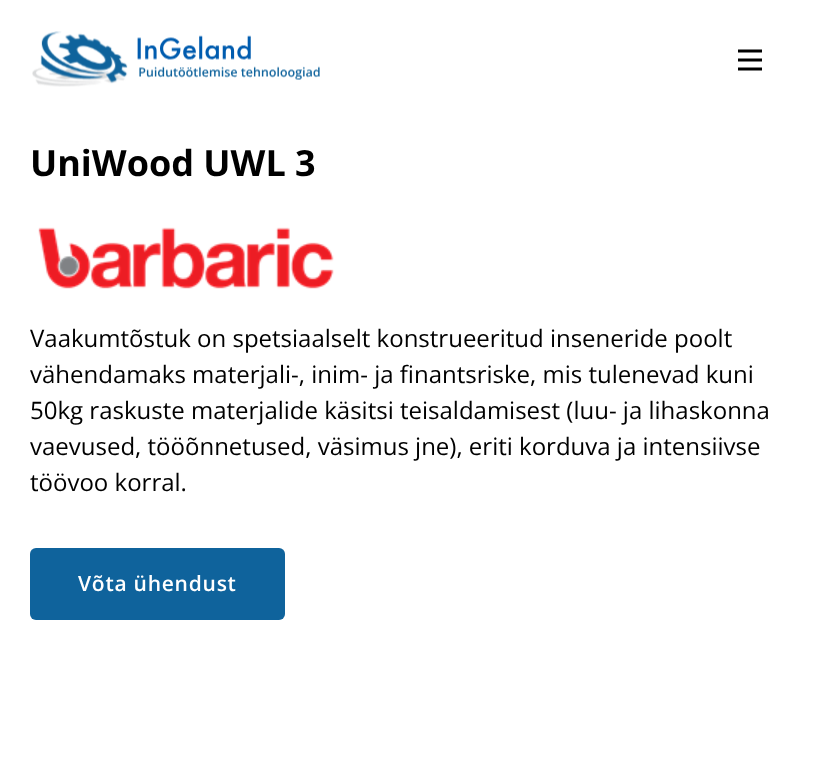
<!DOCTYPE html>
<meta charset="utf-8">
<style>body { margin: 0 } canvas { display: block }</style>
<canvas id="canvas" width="815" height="767"></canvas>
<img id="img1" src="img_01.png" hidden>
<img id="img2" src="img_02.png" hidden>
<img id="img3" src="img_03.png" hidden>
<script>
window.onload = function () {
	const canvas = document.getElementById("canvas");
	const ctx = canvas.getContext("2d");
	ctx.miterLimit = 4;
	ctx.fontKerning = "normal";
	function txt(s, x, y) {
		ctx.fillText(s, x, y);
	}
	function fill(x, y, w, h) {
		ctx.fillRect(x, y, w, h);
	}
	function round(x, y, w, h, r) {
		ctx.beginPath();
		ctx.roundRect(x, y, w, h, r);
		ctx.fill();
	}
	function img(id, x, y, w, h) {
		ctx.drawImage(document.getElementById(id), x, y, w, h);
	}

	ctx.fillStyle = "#FFFFFF";
	fill(0, 0, 815, 767);
	img("img1", 32, 31, 288, 56);
	img("img2", 738, 49, 24, 22);
	img("img3", 38, 227, 296, 62);
	ctx.fillStyle = "#0F639C";
	round(30, 548, 255, 72, 6);
	ctx.font = "bold 36px Open Sans";
	ctx.fillStyle = "#000000";
	txt("UniWood UWL 3", 30, 176);
	ctx.font = "24px Open Sans";
	txt("Vaakumtõstuk on spetsiaalselt konstrueeritud inseneride poolt", 30, 347);
	txt("vähendamaks materjali-, inim- ja finantsriske, mis tulenevad kuni", 30, 383);
	txt("50kg raskuste materjalide käsitsi teisaldamisest (luu- ja lihaskonna", 30, 419);
	txt("vaevused, tööõnnetused, väsimus jne), eriti korduva ja intensiivse", 30, 455);
	txt("töövoo korral.", 30, 491);
	ctx.letterSpacing = "0.75px";
	ctx.font = "600 21px Open Sans";
	ctx.fillStyle = "#FFFFFF";
	txt("Võta ühendust", 78, 591);
};
</script>
